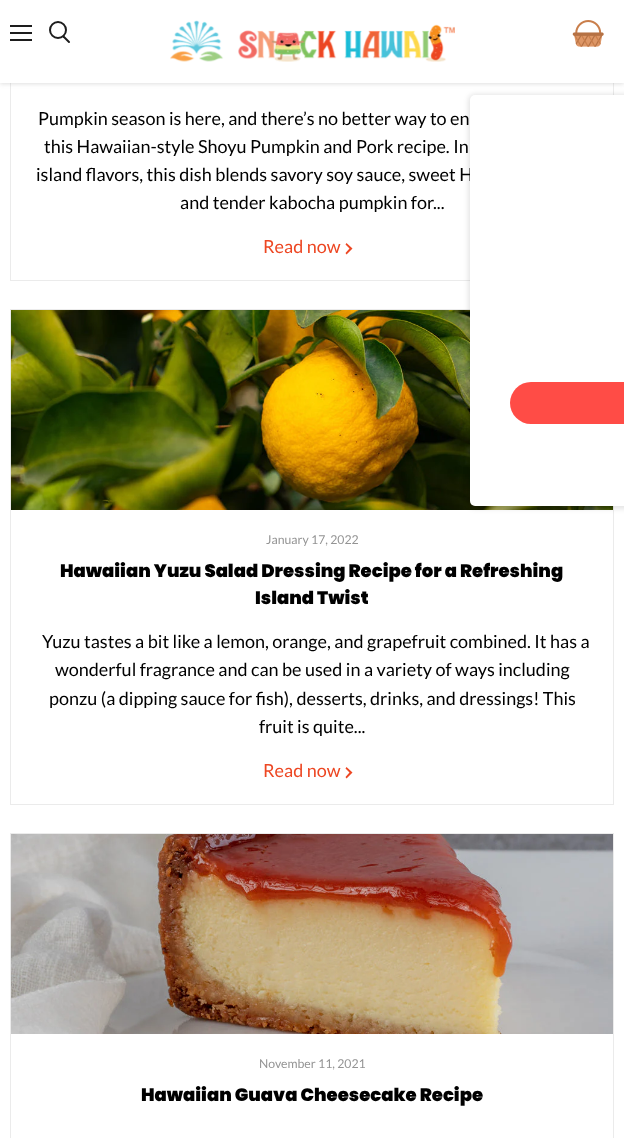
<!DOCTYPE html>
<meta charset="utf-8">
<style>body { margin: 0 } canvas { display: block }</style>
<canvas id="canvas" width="624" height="1138"></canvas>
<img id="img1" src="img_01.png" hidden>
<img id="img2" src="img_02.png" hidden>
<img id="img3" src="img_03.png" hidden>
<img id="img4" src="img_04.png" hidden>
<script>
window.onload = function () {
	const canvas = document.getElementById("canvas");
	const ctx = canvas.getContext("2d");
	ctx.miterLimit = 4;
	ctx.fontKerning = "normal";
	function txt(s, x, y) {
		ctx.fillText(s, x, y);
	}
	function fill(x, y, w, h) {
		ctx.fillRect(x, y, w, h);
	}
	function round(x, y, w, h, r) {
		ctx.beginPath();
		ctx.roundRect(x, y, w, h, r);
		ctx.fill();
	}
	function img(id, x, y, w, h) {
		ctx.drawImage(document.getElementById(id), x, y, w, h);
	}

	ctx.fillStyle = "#FFFFFF";
	fill(0, 0, 624, 1138);
	ctx.strokeStyle = "#EBEBEB";
	ctx.strokeRect(10.5, -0.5, 603, 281);
	ctx.fillStyle = "rgba(128, 128, 128, 0.25)";
	ctx.filter = "blur(2px)";
	ctx.beginPath();
	ctx.rect(0, 1, 624, 83);
	ctx.fill();
	ctx.filter = "none";
	ctx.fillStyle = "#FFFFFF";
	fill(0, 0, 624, 83);
	ctx.fillStyle = "#1D1D1D";
	fill(10, 25, 22, 2);
	fill(10, 32, 22, 2);
	fill(10, 39, 22, 2);
	ctx.beginPath();
	ctx.moveTo(69, 42);
	ctx.lineTo(63.5, 36.5);
	ctx.strokeStyle = "#1D1D1D";
	ctx.lineWidth = 2;
	ctx.lineCap = "round";
	ctx.stroke();
	ctx.beginPath();
	ctx.arc(58, 30, 8, 0, Math.PI * 2);
	ctx.stroke();
	img("img1", 170, 20, 285, 42);
	img("img2", 572, 20, 32, 27);
	ctx.strokeStyle = "#EBEBEB";
	ctx.lineWidth = 1;
	ctx.strokeRect(10.5, 309.5, 603, 495);
	img("img3", 11, 310, 602, 200);
	ctx.fillStyle = "rgba(0, 0, 0, 0.1)";
	ctx.filter = "blur(2.5px)";
	ctx.beginPath();
	ctx.roundRect(468, 94, 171, 415, 7);
	ctx.fill();
	ctx.filter = "none";
	ctx.fillStyle = "#ED4723";
	ctx.beginPath();
	ctx.moveTo(349.5, 248.5);
	ctx.lineTo(345.5, 244.5);
	ctx.lineTo(346.5, 243);
	ctx.lineTo(352.5, 248.5);
	ctx.lineTo(346.5, 254.5);
	ctx.lineTo(345.5, 253);
	ctx.closePath();
	ctx.fill("evenodd");
	ctx.beginPath();
	ctx.moveTo(349.5, 772.5);
	ctx.lineTo(345.5, 768.5);
	ctx.lineTo(346.5, 767);
	ctx.lineTo(352.5, 772.5);
	ctx.lineTo(346.5, 778.5);
	ctx.lineTo(345.5, 777);
	ctx.closePath();
	ctx.fill("evenodd");
	ctx.strokeRect(10.5, 833.5, 603, 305);
	img("img4", 11, 834, 602, 200);
	ctx.font = "18px Lato";
	ctx.fillStyle = "#000000";
	txt("Pumpkin season is here, and there’s no better way to en", 38, 125);
	txt("this Hawaiian-style Shoyu Pumpkin and Pork recipe. In", 44, 153);
	txt("island flavors, this dish blends savory soy sauce, sweet H", 36, 181);
	ctx.fillStyle = "#FFFFFF";
	round(470, 95, 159, 411, 5);
	ctx.fillStyle = "#FF4C46";
	round(510, 382, 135, 42, 21);
	ctx.fillStyle = "#000000";
	txt("and tender kabocha pumpkin for...", 180, 209);
	ctx.fillStyle = "#ED4723";
	txt("Read now", 263, 253);
	ctx.font = "12.25px Lato";
	ctx.fillStyle = "#949494";
	txt("January 17, 2022", 266, 544);
	ctx.font = "900 18px Poppins";
	ctx.fillStyle = "#000000";
	txt("Hawaiian Yuzu Salad Dressing Recipe for a Refreshing", 60, 577);
	txt("Island Twist", 255, 604);
	ctx.font = "18px Lato";
	txt("Yuzu tastes a bit like a lemon, orange, and grapefruit combined. It has a", 42, 648);
	txt("wonderful fragrance and can be used in a variety of ways including", 55, 676);
	txt("ponzu (a dipping sauce for fish), desserts, drinks, and dressings! This", 49, 705);
	txt("fruit is quite...", 259, 733);
	ctx.fillStyle = "#ED4723";
	txt("Read now", 263, 777);
	ctx.font = "12.25px Lato";
	ctx.fillStyle = "#949494";
	txt("November 11, 2021", 259, 1068);
	ctx.font = "900 18px Poppins";
	ctx.fillStyle = "#000000";
	txt("Hawaiian Guava Cheesecake Recipe", 141, 1101);
};
</script>
